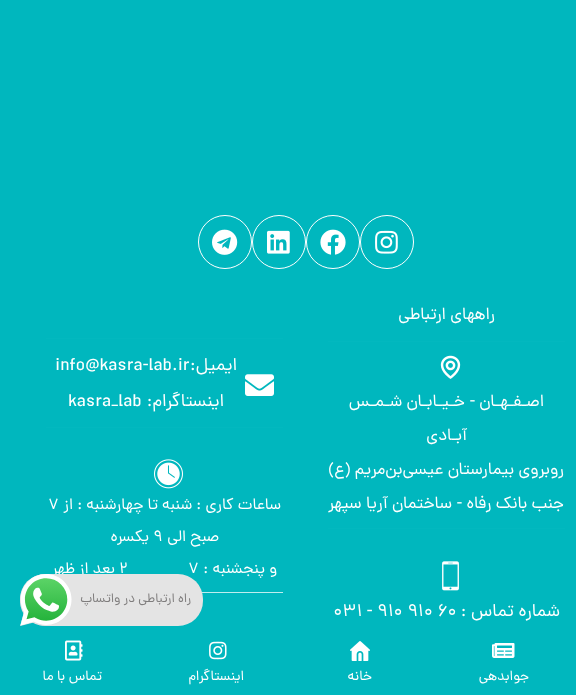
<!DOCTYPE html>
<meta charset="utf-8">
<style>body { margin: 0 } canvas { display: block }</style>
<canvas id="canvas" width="576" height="695"></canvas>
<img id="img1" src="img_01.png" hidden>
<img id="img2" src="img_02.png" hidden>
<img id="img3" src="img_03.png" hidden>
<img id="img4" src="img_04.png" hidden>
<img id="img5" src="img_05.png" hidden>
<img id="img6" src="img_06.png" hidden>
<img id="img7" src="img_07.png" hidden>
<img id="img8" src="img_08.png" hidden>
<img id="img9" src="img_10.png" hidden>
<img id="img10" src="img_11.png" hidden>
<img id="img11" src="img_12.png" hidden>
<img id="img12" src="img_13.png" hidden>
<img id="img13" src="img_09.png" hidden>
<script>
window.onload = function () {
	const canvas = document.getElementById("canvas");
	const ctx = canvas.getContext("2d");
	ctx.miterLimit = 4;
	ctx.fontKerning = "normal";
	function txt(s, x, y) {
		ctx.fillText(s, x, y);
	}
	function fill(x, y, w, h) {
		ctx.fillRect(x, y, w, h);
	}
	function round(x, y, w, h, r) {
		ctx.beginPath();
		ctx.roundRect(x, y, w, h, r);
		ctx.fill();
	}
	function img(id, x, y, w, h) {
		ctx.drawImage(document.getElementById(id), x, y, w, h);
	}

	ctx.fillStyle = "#00B7BE";
	fill(0, 0, 576, 695);
	ctx.beginPath();
	ctx.arc(387, 242, 26.5, 0, Math.PI * 2);
	ctx.strokeStyle = "#FFFFFF";
	ctx.stroke();
	img("img1", 375, 230, 23, 24);
	ctx.beginPath();
	ctx.arc(333, 242, 26.5, 0, Math.PI * 2);
	ctx.stroke();
	img("img2", 320, 229, 26, 26);
	ctx.beginPath();
	ctx.arc(279, 242, 26.5, 0, Math.PI * 2);
	ctx.stroke();
	img("img3", 267, 230, 23, 24);
	ctx.beginPath();
	ctx.arc(225, 242, 26.5, 0, Math.PI * 2);
	ctx.stroke();
	img("img4", 212, 229, 26, 26);
	ctx.fillStyle = "#03B8BF";
	fill(328, 341, 237, 1);
	img("img5", 440, 355, 21, 24);
	fill(328, 528, 237, 1);
	img("img6", 442, 561, 17, 30);
	fill(46, 338, 237, 1);
	img("img7", 245, 374, 29, 22);
	fill(46, 427, 237, 1);
	img("img8", 154, 459, 29, 30);
	ctx.fillStyle = "#BFEDEF";
	fill(202, 592, 81, 1);
	img("img9", 492, 643, 23, 15);
	img("img10", 350, 641, 20, 20);
	img("img11", 209, 641, 18, 19);
	img("img12", 65, 640, 18, 21);
	ctx.direction = "rtl";
	ctx.font = "17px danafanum";
	ctx.fillStyle = "#FFFFFF";
	txt("راههای ارتباطی", 495, 319);
	txt("اصـفـهـان -", 544, 406);
	txt("خـیـابـان شـمـس", 465, 406);
	txt("آبـادی", 467, 440);
	txt("روبروی بیمارستان عیسی‌بن‌مریم (ع)", 564, 474);
	txt("جنب بانک رفاه -", 564, 508);
	txt("ساختمان آریا سپهر", 452, 508);
	ctx.font = "18px danafanum";
	txt("شماره‌ تماس :", 560, 616);
	ctx.direction = "ltr";
	txt("۰۳۱ - ۹۱۰ ۹۱۰ ۶۰", 333, 616);
	ctx.direction = "rtl";
	txt("ایمیل:", 237, 370);
	ctx.direction = "ltr";
	txt("info@kasra-lab.ir", 55, 370);
	ctx.direction = "rtl";
	txt("اینستاگرام:", 224, 406);
	ctx.direction = "ltr";
	txt("kasra_lab", 68, 406);
	ctx.direction = "rtl";
	ctx.font = "16px danafanum";
	txt("ساعات کاری : شنبه تا چهارشنبه :", 281, 509);
	txt("از", 73, 509);
	ctx.direction = "ltr";
	txt("۷", 48, 509);
	ctx.direction = "rtl";
	txt("صبح الی", 219, 541);
	ctx.direction = "ltr";
	txt("۹", 153, 541);
	ctx.direction = "rtl";
	txt("یکسره", 149, 541);
	txt("و پنجشنبه :", 277, 573);
	ctx.direction = "ltr";
	txt("۷", 188, 573);
	txt("۲", 119, 573);
	ctx.direction = "rtl";
	txt("بعد از ظهر", 115, 573);
	ctx.fillStyle = "#E4E4E4";
	round(20, 574, 183, 52, 25);
	ctx.font = "13px danafanum";
	ctx.fillStyle = "#7F7D7D";
	txt("راه ارتباطی در واتساپ", 191, 602);
	img("img13", 20, 574, 52, 52);
	ctx.font = "14px danafanum";
	ctx.fillStyle = "#FFFFFF";
	txt("جوابدهی", 529, 680);
	txt("خانه", 372, 680);
	txt("اینستاگرام", 244, 680);
	txt("تماس با ما", 102, 680);
};
</script>
